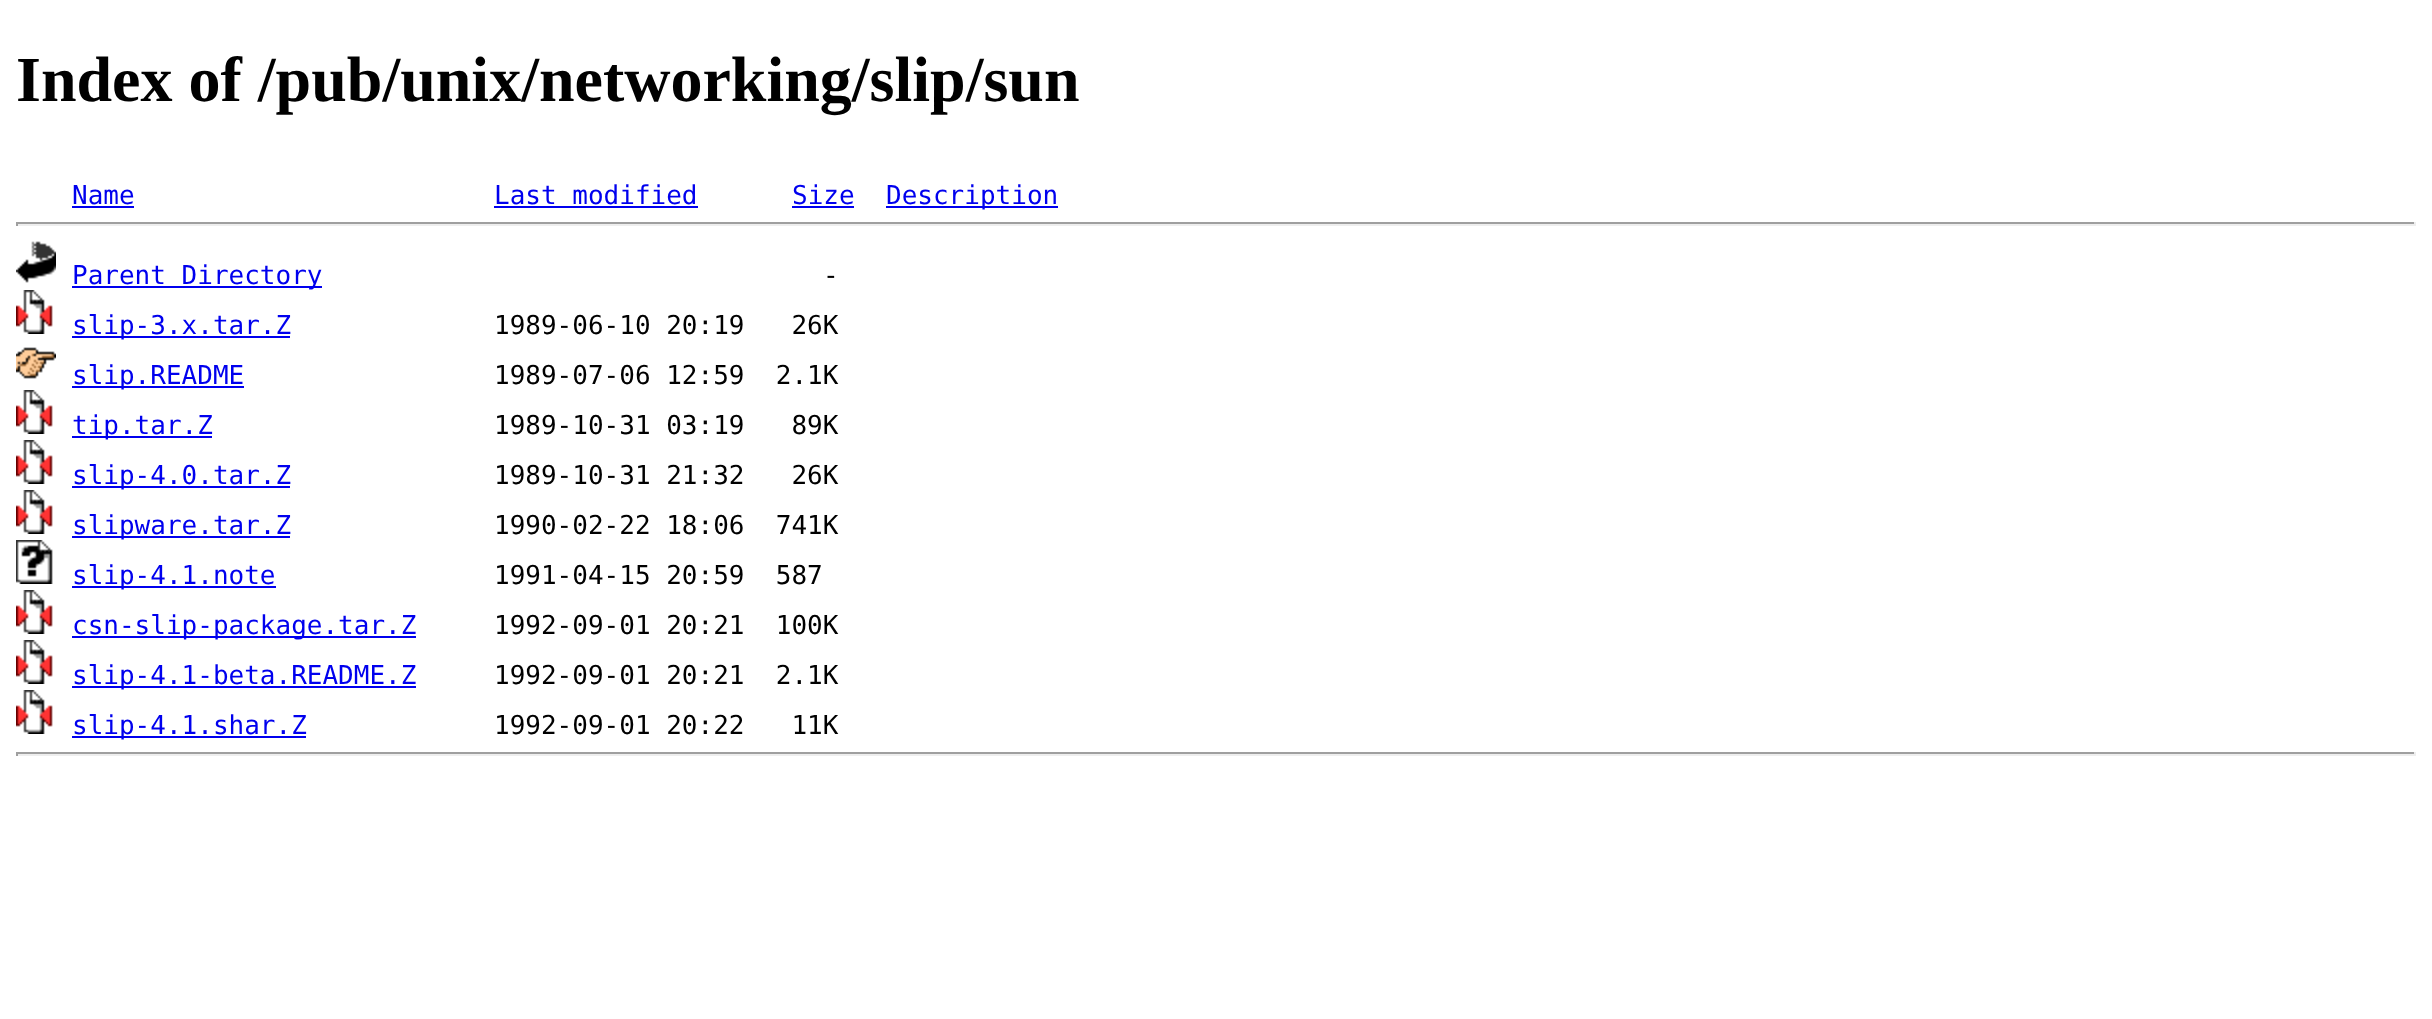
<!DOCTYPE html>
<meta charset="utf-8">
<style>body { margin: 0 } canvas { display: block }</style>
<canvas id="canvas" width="2432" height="1019"></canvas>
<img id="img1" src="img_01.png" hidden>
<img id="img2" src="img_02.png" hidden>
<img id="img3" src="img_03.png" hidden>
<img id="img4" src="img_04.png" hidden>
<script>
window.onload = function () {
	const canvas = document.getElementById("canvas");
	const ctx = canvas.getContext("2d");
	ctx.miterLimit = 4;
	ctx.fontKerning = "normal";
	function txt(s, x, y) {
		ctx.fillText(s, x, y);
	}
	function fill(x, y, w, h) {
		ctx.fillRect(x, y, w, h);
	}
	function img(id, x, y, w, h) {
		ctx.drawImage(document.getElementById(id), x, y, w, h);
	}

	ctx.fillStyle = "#FFFFFF";
	fill(0, 0, 2432, 1019);
	ctx.fillStyle = "#0000EE";
	fill(72, 206, 62, 2);
	fill(494, 206, 204, 2);
	fill(792, 206, 62, 2);
	fill(886, 206, 172, 2);
	ctx.fillStyle = "#9F9F9F";
	fill(16, 222, 2400, 2);
	ctx.fillStyle = "#EEEEEE";
	fill(2414, 222, 2, 4);
	fill(16, 224, 2400, 2);
	ctx.fillStyle = "#9F9F9F";
	fill(16, 222, 2, 4);
	img("img1", 16, 241, 40, 42);
	ctx.fillStyle = "#0000EE";
	fill(72, 286, 250, 2);
	img("img2", 16, 290, 37, 44);
	fill(72, 336, 218, 2);
	img("img3", 16, 347, 40, 32);
	fill(72, 386, 172, 2);
	img("img2", 16, 390, 37, 44);
	fill(72, 436, 140, 2);
	img("img2", 16, 440, 37, 44);
	fill(72, 486, 218, 2);
	img("img2", 16, 490, 37, 44);
	fill(72, 536, 218, 2);
	img("img4", 16, 540, 37, 44);
	fill(72, 586, 204, 2);
	img("img2", 16, 590, 37, 44);
	fill(72, 636, 344, 2);
	img("img2", 16, 640, 37, 44);
	fill(72, 686, 344, 2);
	img("img2", 16, 690, 37, 44);
	fill(72, 736, 234, 2);
	ctx.fillStyle = "#9F9F9F";
	fill(16, 752, 2400, 2);
	ctx.fillStyle = "#EEEEEE";
	fill(2414, 752, 2, 4);
	fill(16, 754, 2400, 2);
	ctx.fillStyle = "#9F9F9F";
	fill(16, 752, 2, 4);
	ctx.font = "bold 64px Liberation Serif";
	ctx.fillStyle = "#000000";
	txt("Index of /pub/unix/networking/slip/sun", 16, 101);
	ctx.font = "26px DejaVu Sans Mono";
	ctx.fillStyle = "#0000EE";
	txt("Name", 72, 204);
	txt("Last modified", 494, 204);
	txt("Size", 792, 204);
	txt("Description", 886, 204);
	txt("Parent Directory", 72, 284);
	ctx.fillStyle = "#000000";
	txt("-", 823, 284);
	ctx.fillStyle = "#0000EE";
	txt("slip-3.x.tar.Z", 72, 334);
	ctx.fillStyle = "#000000";
	txt("1989-06-10 20:19   26K", 494, 334);
	ctx.fillStyle = "#0000EE";
	txt("slip.README", 72, 384);
	ctx.fillStyle = "#000000";
	txt("1989-07-06 12:59  2.1K", 494, 384);
	ctx.fillStyle = "#0000EE";
	txt("tip.tar.Z", 72, 434);
	ctx.fillStyle = "#000000";
	txt("1989-10-31 03:19   89K", 494, 434);
	ctx.fillStyle = "#0000EE";
	txt("slip-4.0.tar.Z", 72, 484);
	ctx.fillStyle = "#000000";
	txt("1989-10-31 21:32   26K", 494, 484);
	ctx.fillStyle = "#0000EE";
	txt("slipware.tar.Z", 72, 534);
	ctx.fillStyle = "#000000";
	txt("1990-02-22 18:06  741K", 494, 534);
	ctx.fillStyle = "#0000EE";
	txt("slip-4.1.note", 72, 584);
	ctx.fillStyle = "#000000";
	txt("1991-04-15 20:59  587", 494, 584);
	ctx.fillStyle = "#0000EE";
	txt("csn-slip-package.tar.Z", 72, 634);
	ctx.fillStyle = "#000000";
	txt("1992-09-01 20:21  100K", 494, 634);
	ctx.fillStyle = "#0000EE";
	txt("slip-4.1-beta.README.Z", 72, 684);
	ctx.fillStyle = "#000000";
	txt("1992-09-01 20:21  2.1K", 494, 684);
	ctx.fillStyle = "#0000EE";
	txt("slip-4.1.shar.Z", 72, 734);
	ctx.fillStyle = "#000000";
	txt("1992-09-01 20:22   11K", 494, 734);
};
</script>
